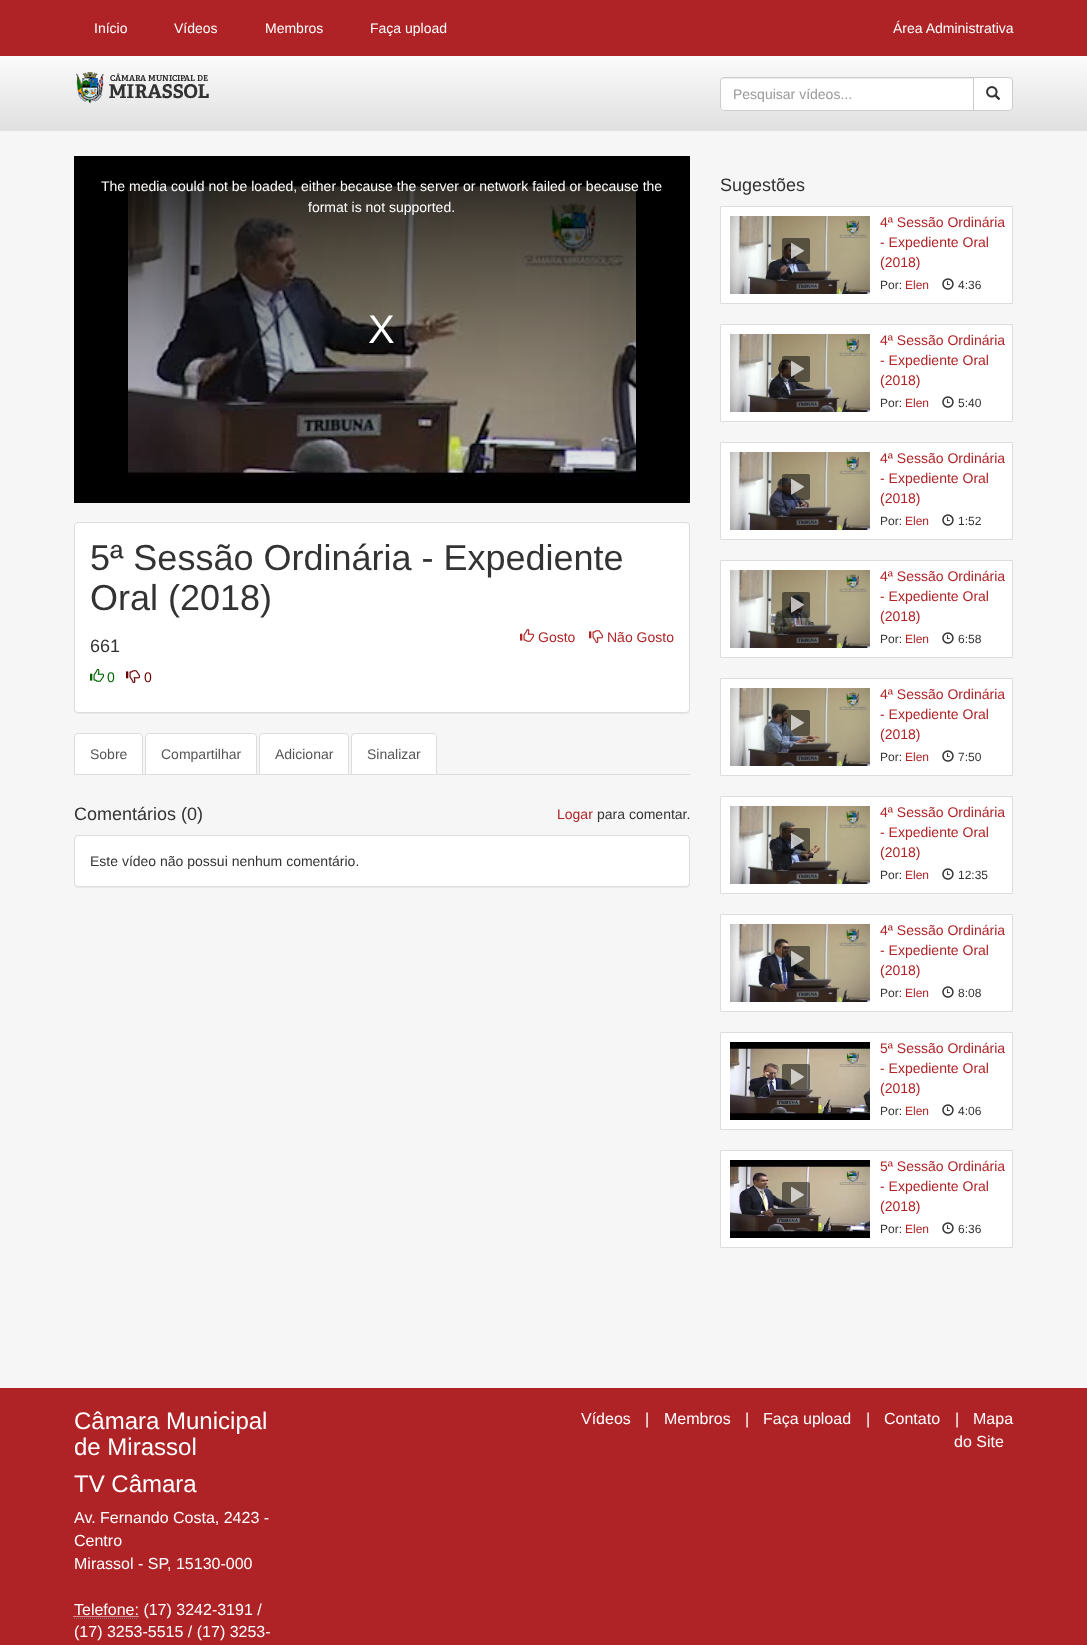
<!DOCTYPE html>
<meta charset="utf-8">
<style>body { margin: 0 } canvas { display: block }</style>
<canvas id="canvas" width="1087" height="1645"></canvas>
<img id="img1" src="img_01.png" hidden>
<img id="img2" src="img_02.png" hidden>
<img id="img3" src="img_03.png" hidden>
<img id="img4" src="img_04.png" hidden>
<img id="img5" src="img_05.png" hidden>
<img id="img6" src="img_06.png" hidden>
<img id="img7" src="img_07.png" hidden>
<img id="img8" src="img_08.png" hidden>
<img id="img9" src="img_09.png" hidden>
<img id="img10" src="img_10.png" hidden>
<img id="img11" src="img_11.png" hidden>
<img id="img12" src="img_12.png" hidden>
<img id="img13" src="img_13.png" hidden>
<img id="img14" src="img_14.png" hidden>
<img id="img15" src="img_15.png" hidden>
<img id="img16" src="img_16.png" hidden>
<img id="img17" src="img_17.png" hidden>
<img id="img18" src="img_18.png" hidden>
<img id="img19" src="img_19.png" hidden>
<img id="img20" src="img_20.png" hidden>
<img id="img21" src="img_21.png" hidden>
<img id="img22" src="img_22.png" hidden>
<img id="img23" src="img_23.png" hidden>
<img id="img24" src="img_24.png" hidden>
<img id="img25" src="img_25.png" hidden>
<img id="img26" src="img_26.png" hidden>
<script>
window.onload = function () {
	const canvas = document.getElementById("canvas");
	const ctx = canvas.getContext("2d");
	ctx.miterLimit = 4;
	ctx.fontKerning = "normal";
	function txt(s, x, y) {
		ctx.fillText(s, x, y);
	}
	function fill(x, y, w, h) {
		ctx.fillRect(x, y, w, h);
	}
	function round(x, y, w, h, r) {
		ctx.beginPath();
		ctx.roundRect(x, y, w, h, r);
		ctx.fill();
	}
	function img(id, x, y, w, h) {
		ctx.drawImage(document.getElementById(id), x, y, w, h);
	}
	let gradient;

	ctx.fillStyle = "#F6F6F6";
	fill(0, 0, 1087, 1645);
	ctx.fillStyle = "#AF2326";
	fill(0, 0, 1087, 56);
	gradient = ctx.createLinearGradient(544, 56, 544, 131);
	gradient.addColorStop(0, "#FBFBFB");
	gradient.addColorStop(1, "#E0E0E0");
	ctx.fillStyle = gradient;
	fill(0, 56, 1087, 75);
	img("img1", 76, 72, 133, 32);
	ctx.fillStyle = "#FFFFFF";
	ctx.beginPath();
	ctx.roundRect(720, 77, 254, 34, [4, 0, 0, 4]);
	ctx.fill();
	ctx.fillStyle = "#ECECEC";
	ctx.beginPath();
	ctx.moveTo(724, 79);
	ctx.lineTo(973, 79);
	ctx.lineTo(973, 78);
	ctx.lineTo(724, 78);
	ctx.bezierCurveTo(722, 78, 721, 80, 721, 82);
	ctx.bezierCurveTo(721, 80, 722, 79, 724, 79);
	ctx.closePath();
	ctx.fill();
	ctx.beginPath();
	ctx.roundRect(720.5, 77.5, 253, 33, [3.5, 0, 0, 3.5]);
	ctx.strokeStyle = "#CCCCCC";
	ctx.stroke();
	ctx.fillStyle = "#FFFFFF";
	ctx.beginPath();
	ctx.roundRect(973.5, 77.5, 39, 33, [0, 3.5, 3.5, 0]);
	ctx.fill();
	ctx.stroke();
	img("img2", 986, 86, 15, 14);
	ctx.fillStyle = "#000000";
	fill(74, 156, 616, 347);
	img("img3", 128, 179, 508, 301);
	gradient = ctx.createLinearGradient(382, 156, 382, 503);
	gradient.addColorStop(0, "rgba(0, 0, 0, 0.8)");
	gradient.addColorStop(1, "rgba(0, 0, 0, 0)");
	ctx.fillStyle = gradient;
	fill(128, 179, 508, 294);
	ctx.fillStyle = "rgba(0, 0, 0, 0.05)";
	ctx.filter = "blur(0.5px)";
	ctx.beginPath();
	ctx.roundRect(74, 523, 616, 191, 4);
	ctx.fill();
	ctx.filter = "none";
	ctx.fillStyle = "#FFFFFF";
	ctx.beginPath();
	ctx.roundRect(74.5, 522.5, 615, 190, 3.5);
	ctx.fill();
	ctx.strokeStyle = "#DDDDDD";
	ctx.stroke();
	img("img4", 520, 629, 14, 13);
	img("img5", 589, 630, 14, 13);
	img("img6", 90, 669, 14, 13);
	img("img7", 126, 670, 14, 13);
	ctx.fillStyle = "#DDDDDD";
	fill(143, 774, 547, 1);
	ctx.fillStyle = "#FFFFFF";
	ctx.beginPath();
	ctx.roundRect(74.5, 733.5, 68, 41, [3.5, 3.5, 0, 0]);
	ctx.fill();
	ctx.stroke();
	ctx.beginPath();
	ctx.roundRect(145.5, 733.5, 111, 41, [3.5, 3.5, 0, 0]);
	ctx.fill();
	ctx.stroke();
	ctx.beginPath();
	ctx.roundRect(259.5, 733.5, 89, 41, [3.5, 3.5, 0, 0]);
	ctx.fill();
	ctx.stroke();
	ctx.beginPath();
	ctx.roundRect(351.5, 733.5, 85, 41, [3.5, 3.5, 0, 0]);
	ctx.fill();
	ctx.stroke();
	ctx.fillStyle = "rgba(0, 0, 0, 0.05)";
	ctx.filter = "blur(0.5px)";
	ctx.beginPath();
	ctx.roundRect(74, 836, 616, 52, 4);
	ctx.fill();
	ctx.filter = "none";
	ctx.fillStyle = "#FFFFFF";
	ctx.beginPath();
	ctx.roundRect(74.5, 835.5, 615, 51, 3.5);
	ctx.fill();
	ctx.stroke();
	ctx.beginPath();
	ctx.rect(720.5, 206.5, 292, 97);
	ctx.fill();
	ctx.stroke();
	img("img8", 730, 216, 140, 78);
	ctx.fillStyle = "rgba(0, 0, 0, 0.49)";
	round(782, 238, 28, 26, 2);
	img("img9", 791, 242, 13, 17);
	img("img10", 942, 278, 12, 12);
	ctx.fillStyle = "#FFFFFF";
	ctx.beginPath();
	ctx.rect(720.5, 324.5, 292, 97);
	ctx.fill();
	ctx.stroke();
	img("img11", 730, 334, 140, 78);
	ctx.fillStyle = "rgba(0, 0, 0, 0.49)";
	round(782, 356, 28, 26, 2);
	img("img12", 791, 360, 13, 17);
	img("img10", 942, 396, 12, 12);
	ctx.fillStyle = "#FFFFFF";
	ctx.beginPath();
	ctx.rect(720.5, 442.5, 292, 97);
	ctx.fill();
	ctx.stroke();
	img("img13", 730, 452, 140, 78);
	ctx.fillStyle = "rgba(0, 0, 0, 0.49)";
	round(782, 474, 28, 26, 2);
	img("img14", 791, 478, 13, 17);
	img("img10", 942, 514, 12, 12);
	ctx.fillStyle = "#FFFFFF";
	ctx.beginPath();
	ctx.rect(720.5, 560.5, 292, 97);
	ctx.fill();
	ctx.stroke();
	img("img15", 730, 570, 140, 78);
	ctx.fillStyle = "rgba(0, 0, 0, 0.49)";
	round(782, 592, 28, 26, 2);
	img("img16", 791, 596, 13, 17);
	img("img10", 942, 632, 12, 12);
	ctx.fillStyle = "#FFFFFF";
	ctx.beginPath();
	ctx.rect(720.5, 678.5, 292, 97);
	ctx.fill();
	ctx.stroke();
	img("img17", 730, 688, 140, 78);
	ctx.fillStyle = "rgba(0, 0, 0, 0.49)";
	round(782, 710, 28, 26, 2);
	img("img18", 791, 714, 13, 17);
	img("img10", 942, 750, 12, 12);
	ctx.fillStyle = "#FFFFFF";
	ctx.beginPath();
	ctx.rect(720.5, 796.5, 292, 97);
	ctx.fill();
	ctx.stroke();
	img("img19", 730, 806, 140, 78);
	ctx.fillStyle = "rgba(0, 0, 0, 0.49)";
	round(782, 828, 28, 26, 2);
	img("img20", 791, 832, 13, 17);
	img("img10", 942, 868, 12, 12);
	ctx.fillStyle = "#FFFFFF";
	ctx.beginPath();
	ctx.rect(720.5, 914.5, 292, 97);
	ctx.fill();
	ctx.stroke();
	img("img21", 730, 924, 140, 78);
	ctx.fillStyle = "rgba(0, 0, 0, 0.49)";
	round(782, 946, 28, 26, 2);
	img("img22", 791, 950, 13, 17);
	img("img10", 942, 986, 12, 12);
	ctx.fillStyle = "#FFFFFF";
	ctx.beginPath();
	ctx.rect(720.5, 1032.5, 292, 97);
	ctx.fill();
	ctx.stroke();
	img("img23", 730, 1042, 140, 78);
	ctx.fillStyle = "rgba(0, 0, 0, 0.49)";
	round(782, 1064, 28, 26, 2);
	img("img24", 791, 1068, 13, 17);
	img("img10", 942, 1104, 12, 12);
	ctx.fillStyle = "#FFFFFF";
	ctx.beginPath();
	ctx.rect(720.5, 1150.5, 292, 97);
	ctx.fill();
	ctx.stroke();
	img("img25", 730, 1160, 140, 78);
	ctx.fillStyle = "rgba(0, 0, 0, 0.49)";
	round(782, 1182, 28, 26, 2);
	img("img26", 791, 1186, 13, 17);
	img("img10", 942, 1222, 12, 12);
	ctx.fillStyle = "#AF2326";
	fill(0, 1388, 1087, 257);
	ctx.beginPath();
	ctx.moveTo(74, 1618.5);
	ctx.lineTo(138, 1618.5);
	ctx.strokeStyle = "#777777";
	ctx.setLineDash([1, 1]);
	ctx.stroke();
	ctx.beginPath();
	ctx.moveTo(73.5, 1616.5);
	ctx.lineTo(138.5, 1616.5);
	ctx.strokeStyle = "#FFFFFF";
	ctx.stroke();
	ctx.font = "14px Liberation Sans";
	ctx.fillStyle = "#FFFFFF";
	txt("Início", 94, 33);
	txt("Vídeos", 174, 33);
	txt("Membros", 265, 33);
	txt("Faça upload", 370, 33);
	txt("Área Administrativa", 893, 33);
	ctx.fillStyle = "#999999";
	txt("Pesquisar vídeos...", 733, 99);
	ctx.fillStyle = "#FFFFFF";
	txt("The media could not be loaded, either because the server or network failed or because the", 101, 191);
	txt("format is not supported.", 308, 212);
	ctx.font = "40px Liberation Sans";
	txt("X", 368, 343);
	ctx.font = "36px Liberation Sans";
	ctx.fillStyle = "#333333";
	txt("5ª Sessão Ordinária - Expediente", 90, 570);
	txt("Oral (2018)", 90, 610);
	ctx.font = "14px Liberation Sans";
	ctx.fillStyle = "#AF2326";
	txt("Gosto", 538, 642);
	txt("Não Gosto", 607, 642);
	ctx.font = "18px Liberation Sans";
	ctx.fillStyle = "#333333";
	txt("661", 90, 652);
	ctx.font = "14px Liberation Sans";
	ctx.fillStyle = "#006600";
	txt("0", 107, 682);
	ctx.fillStyle = "#660000";
	txt("0", 144, 682);
	ctx.fillStyle = "#555555";
	txt("Sobre", 90, 759);
	txt("Compartilhar", 161, 759);
	txt("Adicionar", 275, 759);
	txt("Sinalizar", 367, 759);
	ctx.font = "18px Liberation Sans";
	ctx.fillStyle = "#333333";
	txt("Comentários (0)", 74, 820);
	ctx.font = "14px Liberation Sans";
	ctx.fillStyle = "#AF2326";
	txt("Logar", 557, 819);
	ctx.fillStyle = "#333333";
	txt("para comentar.", 597, 819);
	txt("Este vídeo não possui nenhum comentário.", 90, 866);
	ctx.font = "18px Liberation Sans";
	txt("Sugestões", 720, 191);
	ctx.font = "14px Liberation Sans";
	ctx.fillStyle = "#AF2326";
	txt("4ª Sessão Ordinária", 880, 227);
	txt("- Expediente Oral", 880, 247);
	txt("(2018)", 880, 267);
	ctx.font = "12px Liberation Sans";
	ctx.fillStyle = "#333333";
	txt("Por:", 880, 289);
	ctx.fillStyle = "#AF2326";
	txt("Elen", 905, 289);
	ctx.fillStyle = "#333333";
	txt("4:36", 958, 289);
	ctx.font = "14px Liberation Sans";
	ctx.fillStyle = "#AF2326";
	txt("4ª Sessão Ordinária", 880, 345);
	txt("- Expediente Oral", 880, 365);
	txt("(2018)", 880, 385);
	ctx.font = "12px Liberation Sans";
	ctx.fillStyle = "#333333";
	txt("Por:", 880, 407);
	ctx.fillStyle = "#AF2326";
	txt("Elen", 905, 407);
	ctx.fillStyle = "#333333";
	txt("5:40", 958, 407);
	ctx.font = "14px Liberation Sans";
	ctx.fillStyle = "#AF2326";
	txt("4ª Sessão Ordinária", 880, 463);
	txt("- Expediente Oral", 880, 483);
	txt("(2018)", 880, 503);
	ctx.font = "12px Liberation Sans";
	ctx.fillStyle = "#333333";
	txt("Por:", 880, 525);
	ctx.fillStyle = "#AF2326";
	txt("Elen", 905, 525);
	ctx.fillStyle = "#333333";
	txt("1:52", 958, 525);
	ctx.font = "14px Liberation Sans";
	ctx.fillStyle = "#AF2326";
	txt("4ª Sessão Ordinária", 880, 581);
	txt("- Expediente Oral", 880, 601);
	txt("(2018)", 880, 621);
	ctx.font = "12px Liberation Sans";
	ctx.fillStyle = "#333333";
	txt("Por:", 880, 643);
	ctx.fillStyle = "#AF2326";
	txt("Elen", 905, 643);
	ctx.fillStyle = "#333333";
	txt("6:58", 958, 643);
	ctx.font = "14px Liberation Sans";
	ctx.fillStyle = "#AF2326";
	txt("4ª Sessão Ordinária", 880, 699);
	txt("- Expediente Oral", 880, 719);
	txt("(2018)", 880, 739);
	ctx.font = "12px Liberation Sans";
	ctx.fillStyle = "#333333";
	txt("Por:", 880, 761);
	ctx.fillStyle = "#AF2326";
	txt("Elen", 905, 761);
	ctx.fillStyle = "#333333";
	txt("7:50", 958, 761);
	ctx.font = "14px Liberation Sans";
	ctx.fillStyle = "#AF2326";
	txt("4ª Sessão Ordinária", 880, 817);
	txt("- Expediente Oral", 880, 837);
	txt("(2018)", 880, 857);
	ctx.font = "12px Liberation Sans";
	ctx.fillStyle = "#333333";
	txt("Por:", 880, 879);
	ctx.fillStyle = "#AF2326";
	txt("Elen", 905, 879);
	ctx.fillStyle = "#333333";
	txt("12:35", 958, 879);
	ctx.font = "14px Liberation Sans";
	ctx.fillStyle = "#AF2326";
	txt("4ª Sessão Ordinária", 880, 935);
	txt("- Expediente Oral", 880, 955);
	txt("(2018)", 880, 975);
	ctx.font = "12px Liberation Sans";
	ctx.fillStyle = "#333333";
	txt("Por:", 880, 997);
	ctx.fillStyle = "#AF2326";
	txt("Elen", 905, 997);
	ctx.fillStyle = "#333333";
	txt("8:08", 958, 997);
	ctx.font = "14px Liberation Sans";
	ctx.fillStyle = "#AF2326";
	txt("5ª Sessão Ordinária", 880, 1053);
	txt("- Expediente Oral", 880, 1073);
	txt("(2018)", 880, 1093);
	ctx.font = "12px Liberation Sans";
	ctx.fillStyle = "#333333";
	txt("Por:", 880, 1115);
	ctx.fillStyle = "#AF2326";
	txt("Elen", 905, 1115);
	ctx.fillStyle = "#333333";
	txt("4:06", 958, 1115);
	ctx.font = "14px Liberation Sans";
	ctx.fillStyle = "#AF2326";
	txt("5ª Sessão Ordinária", 880, 1171);
	txt("- Expediente Oral", 880, 1191);
	txt("(2018)", 880, 1211);
	ctx.font = "12px Liberation Sans";
	ctx.fillStyle = "#333333";
	txt("Por:", 880, 1233);
	ctx.fillStyle = "#AF2326";
	txt("Elen", 905, 1233);
	ctx.fillStyle = "#333333";
	txt("6:36", 958, 1233);
	ctx.font = "24px Liberation Sans";
	ctx.fillStyle = "#FFFFFF";
	txt("Câmara Municipal", 74, 1429);
	txt("de Mirassol", 74, 1455);
	txt("TV Câmara", 74, 1492);
	ctx.font = "16px Liberation Sans";
	txt("Av. Fernando Costa, 2423 -", 74, 1523);
	txt("Centro", 74, 1546);
	txt("Mirassol - SP, 15130-000", 74, 1569);
	txt("Telefone: (17) 3242-3191 /", 74, 1615);
	txt("(17) 3253-5515 / (17) 3253-", 74, 1637);
	txt("Vídeos", 581, 1424);
	txt("|", 645, 1424);
	txt("Membros", 664, 1424);
	txt("|", 745, 1424);
	txt("Faça upload", 763, 1424);
	txt("|", 866, 1424);
	txt("Contato", 884, 1424);
	txt("|", 955, 1424);
	txt("Mapa", 973, 1424);
	txt("do Site", 954, 1447);
};
</script>
